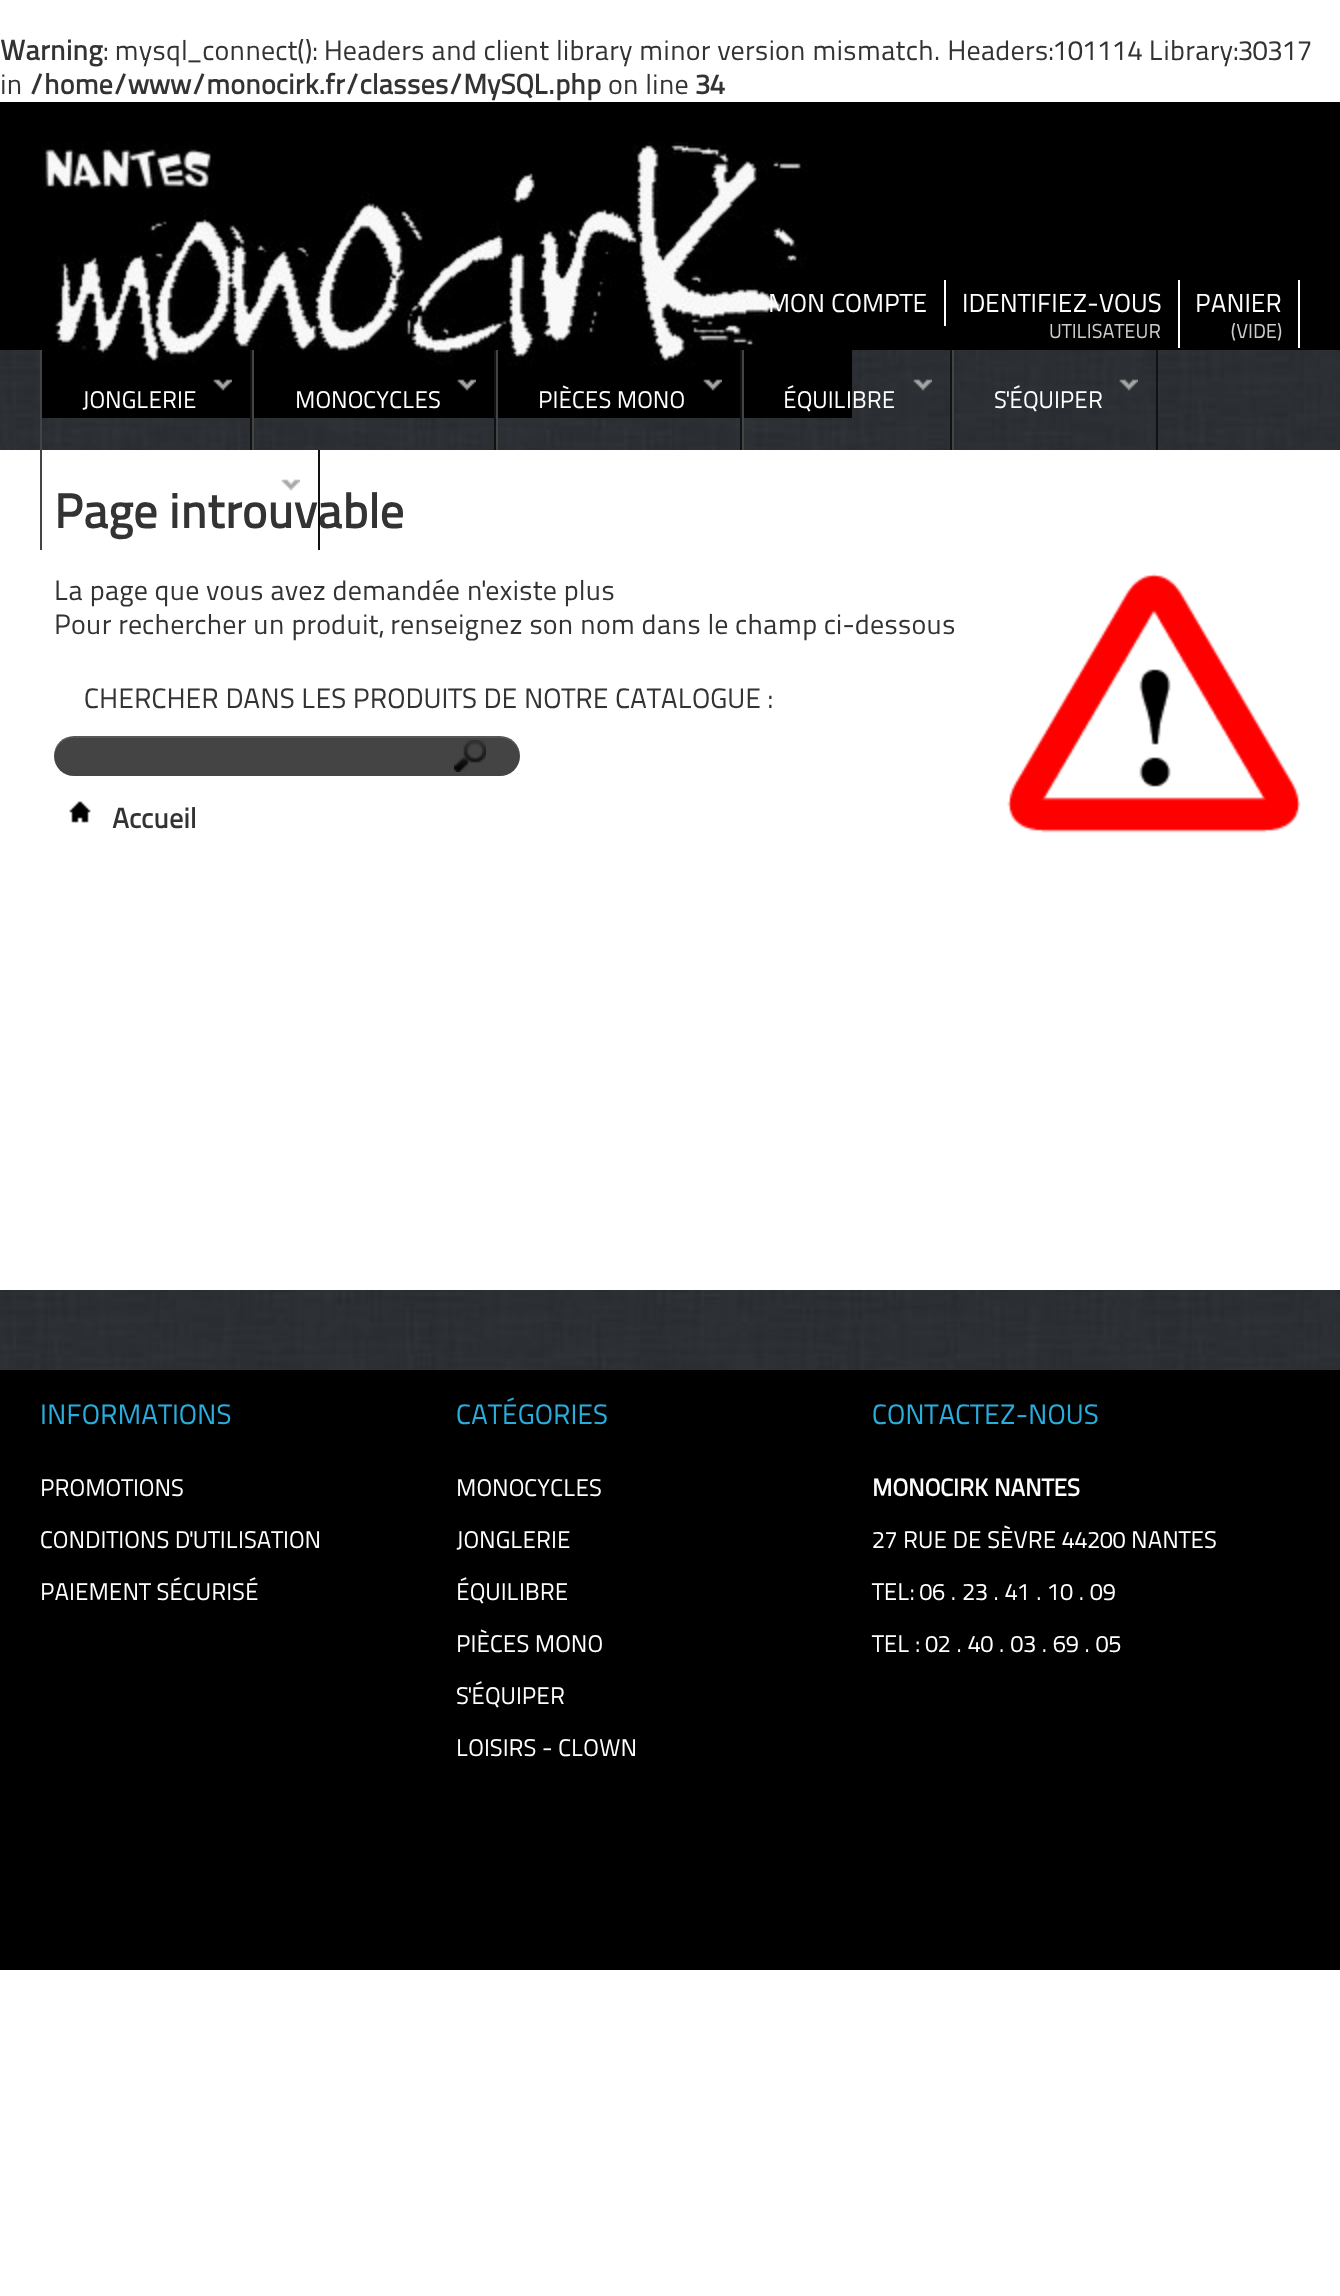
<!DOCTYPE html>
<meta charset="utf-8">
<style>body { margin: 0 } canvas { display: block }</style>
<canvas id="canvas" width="1340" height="2296"></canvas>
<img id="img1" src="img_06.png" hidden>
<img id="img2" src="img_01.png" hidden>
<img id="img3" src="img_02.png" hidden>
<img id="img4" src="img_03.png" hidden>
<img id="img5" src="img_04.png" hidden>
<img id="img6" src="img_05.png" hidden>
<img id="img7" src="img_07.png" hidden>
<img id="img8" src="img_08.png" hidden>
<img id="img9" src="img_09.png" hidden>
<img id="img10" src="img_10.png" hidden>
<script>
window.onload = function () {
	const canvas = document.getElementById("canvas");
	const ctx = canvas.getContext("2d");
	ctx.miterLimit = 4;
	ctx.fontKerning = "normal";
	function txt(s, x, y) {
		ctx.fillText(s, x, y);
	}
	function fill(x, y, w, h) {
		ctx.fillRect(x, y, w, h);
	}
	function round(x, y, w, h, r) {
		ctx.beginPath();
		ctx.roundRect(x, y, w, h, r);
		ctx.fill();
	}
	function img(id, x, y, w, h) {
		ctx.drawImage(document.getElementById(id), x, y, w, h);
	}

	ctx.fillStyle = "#FFFFFF";
	fill(0, 0, 1340, 2296);
	ctx.fillStyle = "#000000";
	fill(0, 102, 1340, 248);
	img("img1", 0, 350, 1340, 100);
	img("img2", 40, 142, 812, 276);
	ctx.fillStyle = "#FFFFFF";
	fill(944, 280, 2, 46);
	fill(1178, 280, 2, 68);
	fill(1298, 280, 2, 68);
	ctx.fillStyle = "#111111";
	fill(250, 350, 2, 100);
	ctx.fillStyle = "#444444";
	fill(40, 350, 2, 200);
	img("img3", 213, 379, 19, 12);
	ctx.fillStyle = "#111111";
	fill(494, 350, 2, 100);
	ctx.fillStyle = "#444444";
	fill(252, 350, 2, 100);
	img("img3", 457, 379, 19, 12);
	ctx.fillStyle = "#111111";
	fill(740, 350, 2, 100);
	ctx.fillStyle = "#444444";
	fill(496, 350, 2, 100);
	img("img3", 703, 379, 19, 12);
	ctx.fillStyle = "#111111";
	fill(950, 350, 2, 100);
	ctx.fillStyle = "#444444";
	fill(742, 350, 2, 100);
	img("img4", 913, 379, 19, 12);
	ctx.fillStyle = "#111111";
	fill(1156, 350, 2, 100);
	ctx.fillStyle = "#444444";
	fill(952, 350, 2, 100);
	img("img5", 1119, 379, 19, 12);
	img("img6", 281, 479, 19, 12);
	img("img7", 1007, 573, 294, 260);
	round(54, 736, 466, 40, 20);
	ctx.fillStyle = "rgba(255, 255, 255, 0.1)";
	ctx.beginPath();
	ctx.moveTo(74, 738);
	ctx.lineTo(500, 738);
	ctx.bezierCurveTo(511, 738, 519, 746, 520, 757);
	ctx.bezierCurveTo(521, 746, 511, 736, 500, 736);
	ctx.lineTo(74, 736);
	ctx.bezierCurveTo(63, 736, 53, 746, 54, 757);
	ctx.bezierCurveTo(55, 746, 63, 738, 74, 738);
	ctx.closePath();
	ctx.fill();
	img("img8", 454, 740, 32, 32);
	img("img9", 69, 801, 22, 22);
	img("img10", 0, 1290, 1340, 80);
	ctx.fillStyle = "#000000";
	fill(0, 1370, 1340, 600);
	ctx.font = "bold 28px 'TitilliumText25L'";
	ctx.fillStyle = "#333333";
	txt("Warning", 0, 60);
	ctx.font = "28px 'TitilliumText25L'";
	txt(": mysql_connect(): Headers and client library minor version mismatch. Headers:101114 Library:30317", 103, 60);
	txt("in", 0, 94);
	ctx.font = "bold 28px 'TitilliumText25L'";
	txt("/home/www/monocirk.fr/classes/MySQL.php", 29, 94);
	ctx.font = "28px 'TitilliumText25L'";
	txt("on line", 608, 94);
	ctx.font = "bold 28px 'TitilliumText25L'";
	txt("34", 695, 94);
	ctx.font = "26px 'TitilliumText25L'";
	ctx.fillStyle = "#FFFFFF";
	txt("MON COMPTE", 768, 312);
	txt("IDENTIFIEZ-VOUS", 962, 312);
	ctx.font = "20px 'TitilliumText25L'";
	ctx.fillStyle = "#CCCCCC";
	txt("UTILISATEUR", 1049, 338);
	ctx.font = "26px 'TitilliumText25L'";
	ctx.fillStyle = "#FFFFFF";
	txt("PANIER", 1195, 312);
	ctx.font = "20px 'TitilliumText25L'";
	ctx.fillStyle = "#CCCCCC";
	txt("(VIDE)", 1231, 338);
	ctx.font = "24px 'TitilliumText25L'";
	ctx.fillStyle = "#FFFFFF";
	txt("JONGLERIE", 82, 408);
	txt("MONOCYCLES", 295, 408);
	txt("PIÈCES MONO", 538, 408);
	txt("ÉQUILIBRE", 783, 408);
	txt("S'ÉQUIPER", 994, 408);
	ctx.font = "bold 48px 'TitilliumText25L'";
	ctx.fillStyle = "#333333";
	txt("Page introuvable", 54, 528);
	ctx.fillStyle = "#111111";
	fill(318, 450, 2, 100);
	ctx.font = "28px 'TitilliumText25L'";
	ctx.fillStyle = "#333333";
	txt("La page que vous avez demandée n'existe plus", 54, 600);
	txt("Pour rechercher un produit, renseignez son nom dans le champ ci-dessous", 54, 634);
	txt("CHERCHER DANS LES PRODUITS DE NOTRE CATALOGUE :", 84, 708);
	ctx.font = "bold 28px 'TitilliumText25L'";
	txt("Accueil", 112, 828);
	ctx.font = "28px 'TitilliumText25L'";
	ctx.fillStyle = "#29ADDD";
	txt("INFORMATIONS", 40, 1424);
	ctx.font = "24px 'TitilliumText25L'";
	ctx.fillStyle = "#FFFFFF";
	txt("PROMOTIONS", 40, 1496);
	txt("CONDITIONS D'UTILISATION", 40, 1548);
	txt("PAIEMENT SÉCURISÉ", 40, 1600);
	ctx.font = "28px 'TitilliumText25L'";
	ctx.fillStyle = "#29ADDD";
	txt("CATÉGORIES", 456, 1424);
	ctx.font = "24px 'TitilliumText25L'";
	ctx.fillStyle = "#FFFFFF";
	txt("MONOCYCLES", 456, 1496);
	txt("JONGLERIE", 456, 1548);
	txt("ÉQUILIBRE", 456, 1600);
	txt("PIÈCES MONO", 456, 1652);
	txt("S'ÉQUIPER", 456, 1704);
	txt("LOISIRS - CLOWN", 456, 1756);
	ctx.font = "28px 'TitilliumText25L'";
	ctx.fillStyle = "#29ADDD";
	txt("CONTACTEZ-NOUS", 872, 1424);
	ctx.font = "bold 24px 'TitilliumText25L'";
	ctx.fillStyle = "#FFFFFF";
	txt("MONOCIRK NANTES", 872, 1496);
	ctx.font = "24px 'TitilliumText25L'";
	txt("27 RUE DE SÈVRE 44200 NANTES", 872, 1548);
	txt("TEL: 06 . 23 . 41 . 10 . 09", 872, 1600);
	txt("TEL : 02 . 40 . 03 . 69 . 05", 872, 1652);
};
</script>
